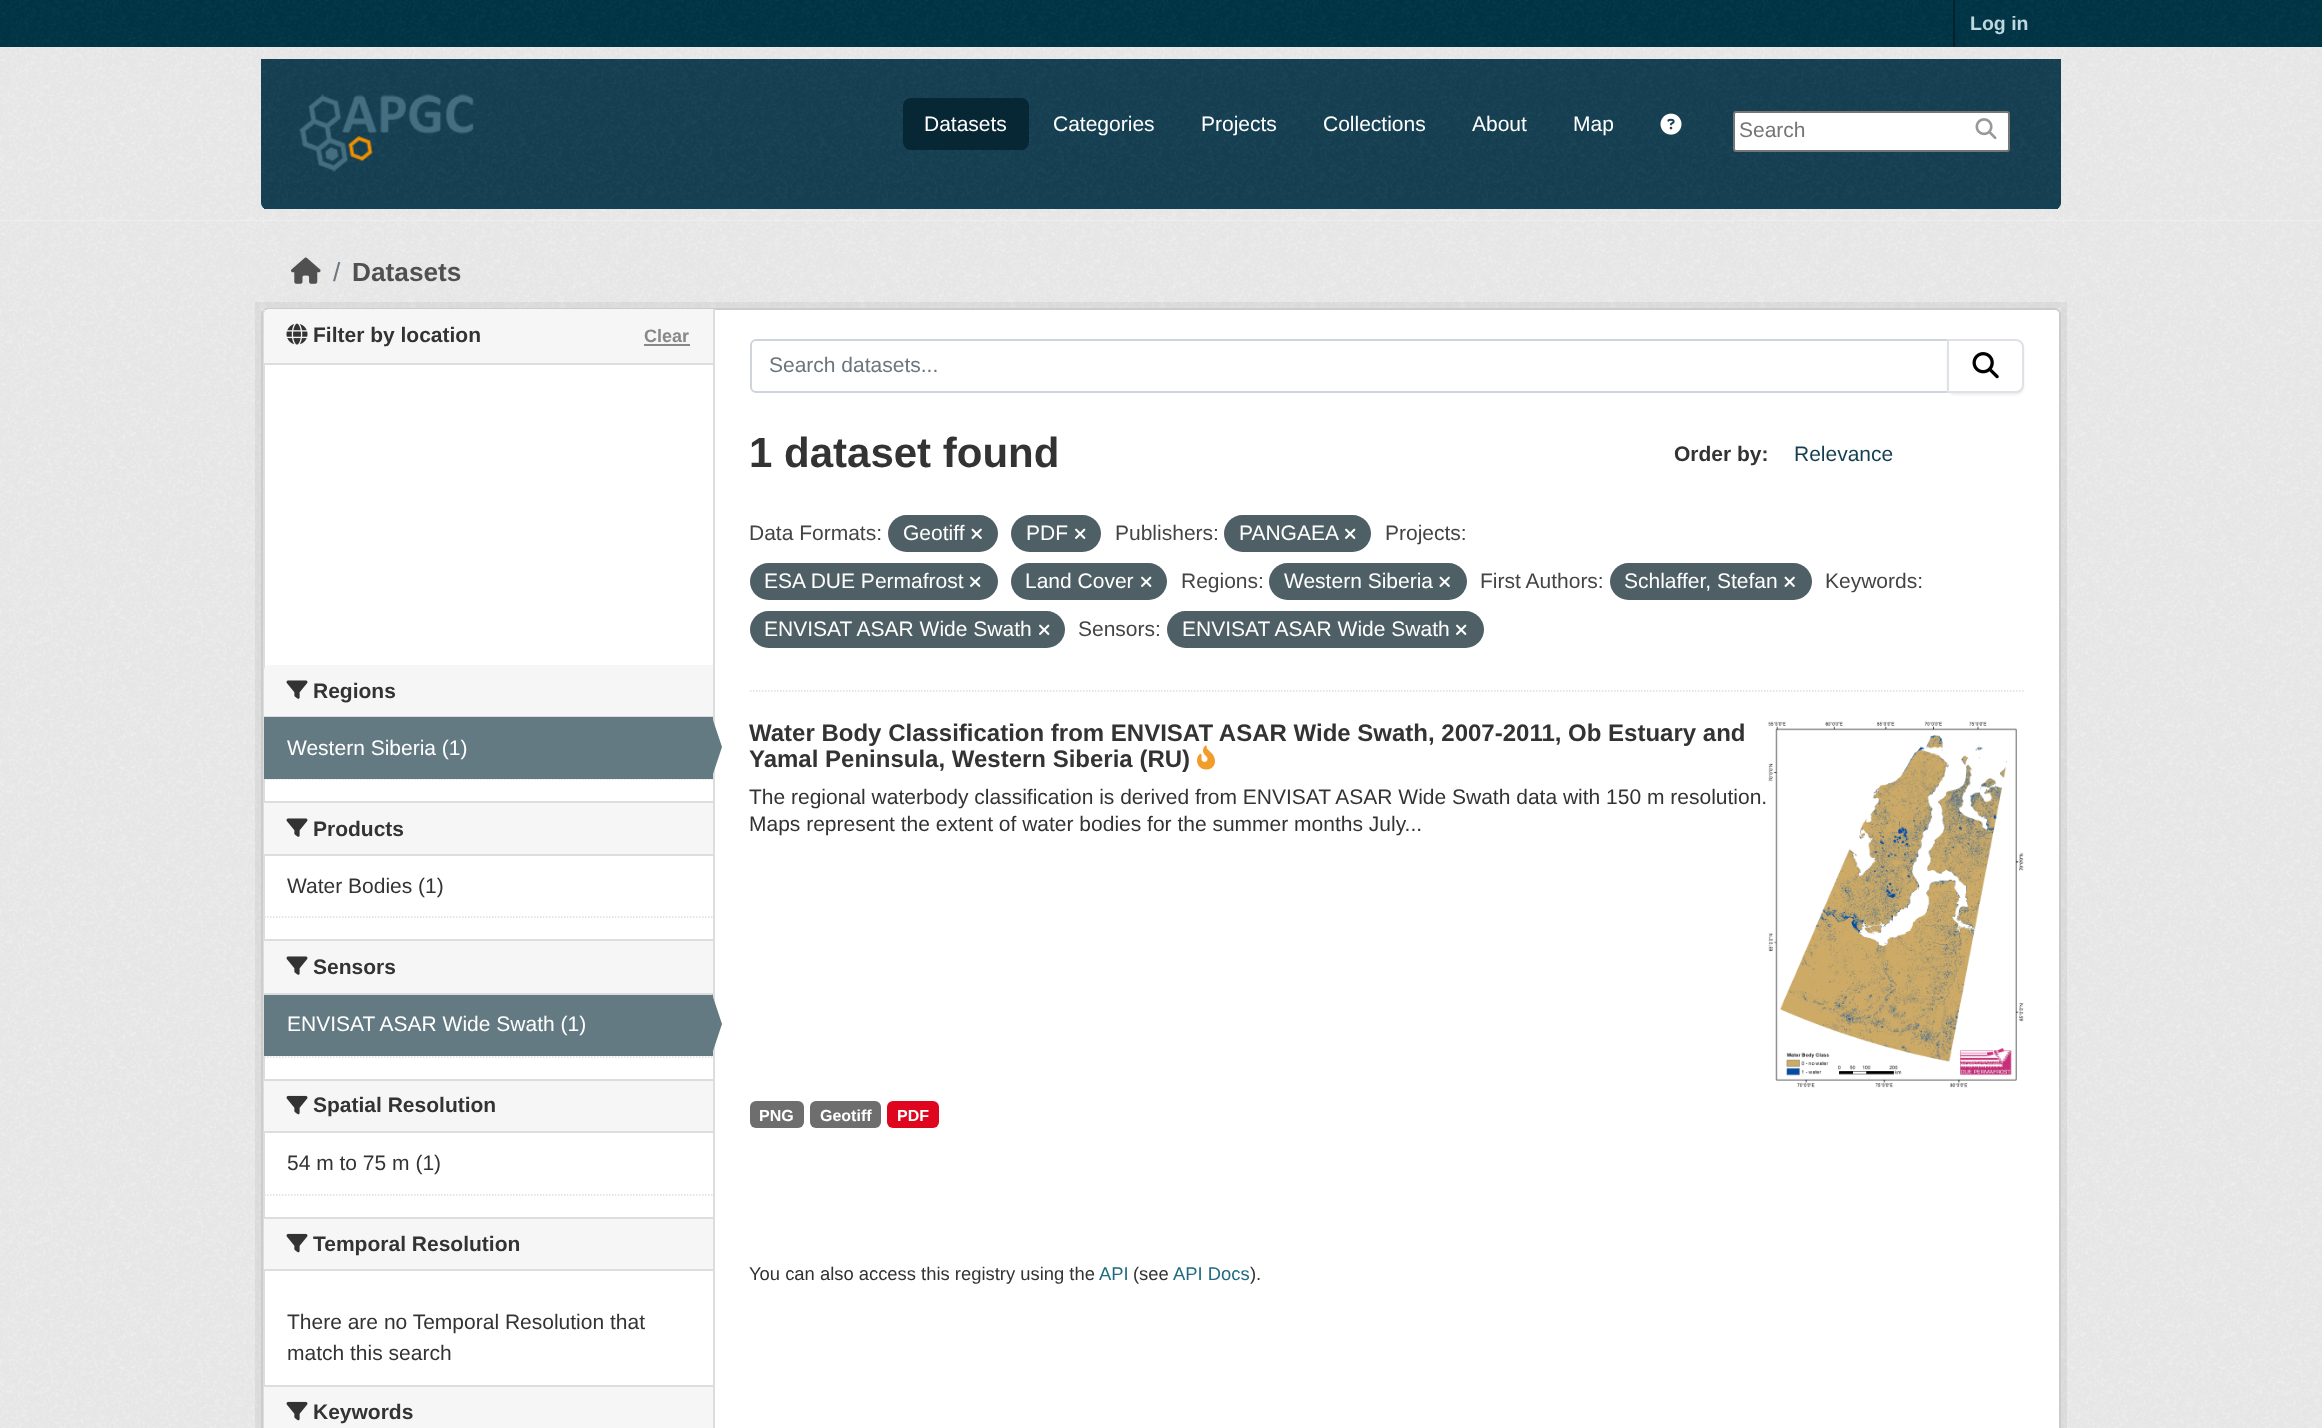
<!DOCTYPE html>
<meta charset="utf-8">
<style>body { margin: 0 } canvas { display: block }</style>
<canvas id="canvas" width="2322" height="1428"></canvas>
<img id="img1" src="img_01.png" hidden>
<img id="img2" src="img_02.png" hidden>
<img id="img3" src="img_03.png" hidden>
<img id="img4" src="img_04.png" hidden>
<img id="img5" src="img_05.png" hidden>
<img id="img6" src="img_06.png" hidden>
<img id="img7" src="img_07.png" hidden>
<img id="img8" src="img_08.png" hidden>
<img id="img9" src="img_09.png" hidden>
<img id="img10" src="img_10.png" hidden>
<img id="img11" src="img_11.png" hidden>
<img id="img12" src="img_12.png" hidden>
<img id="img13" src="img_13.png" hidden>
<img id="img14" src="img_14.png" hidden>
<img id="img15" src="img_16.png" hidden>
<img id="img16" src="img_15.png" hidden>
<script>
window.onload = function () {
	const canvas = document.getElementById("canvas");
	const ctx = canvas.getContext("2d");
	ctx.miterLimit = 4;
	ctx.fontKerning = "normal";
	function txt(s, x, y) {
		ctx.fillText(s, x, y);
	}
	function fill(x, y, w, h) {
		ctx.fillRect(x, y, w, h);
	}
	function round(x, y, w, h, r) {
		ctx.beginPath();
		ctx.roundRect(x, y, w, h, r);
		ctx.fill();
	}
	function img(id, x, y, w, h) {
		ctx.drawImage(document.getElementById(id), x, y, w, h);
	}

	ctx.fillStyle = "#003647";
	fill(0, 0, 2322, 1428);
	img("img1", 0, 0, 2322, 46);
	ctx.fillStyle = "#00232E";
	fill(1953, 0, 2, 47);
	ctx.fillStyle = "#EEEEEE";
	fill(0, 47, 2322, 1381);
	img("img2", 0, 47, 2322, 173);
	ctx.fillStyle = "#164154";
	ctx.beginPath();
	ctx.roundRect(261, 59, 1800, 150, [0, 0, 6, 6]);
	ctx.fill();
	img("img3", 261, 59, 1800, 148);
	fill(264, 203, 1794, 6);
	img("img4", 299, 94, 175, 78);
	ctx.fillStyle = "#072735";
	round(903, 98, 126, 52, 8);
	img("img5", 1660, 113, 22, 22);
	ctx.fillStyle = "#FFFFFF";
	ctx.beginPath();
	ctx.roundRect(1734, 112, 275, 39, 2);
	ctx.fill();
	ctx.strokeStyle = "#767676";
	ctx.lineWidth = 2;
	ctx.stroke();
	img("img6", 1975, 118, 22, 22);
	img("img7", 0, 221, 2322, 1207);
	img("img8", 291, 257, 30, 27);
	ctx.strokeStyle = "rgba(0, 0, 0, 0.05)";
	ctx.lineWidth = 6;
	ctx.strokeRect(258, 305, 1806, 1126);
	ctx.beginPath();
	ctx.roundRect(262, 309, 1798, 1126, 5);
	ctx.fill();
	ctx.strokeStyle = "#CCCCCC";
	ctx.lineWidth = 2;
	ctx.stroke();
	ctx.fillStyle = "#DDDDDD";
	fill(263, 309, 2, 1119);
	ctx.fillStyle = "#F6F6F6";
	ctx.beginPath();
	ctx.roundRect(264, 309, 449, 56, [5, 0, 0, 0]);
	ctx.fill();
	ctx.fillStyle = "#DDDDDD";
	fill(264, 363, 449, 2);
	img("img9", 286, 323, 22, 22);
	ctx.fillStyle = "#888888";
	fill(644, 344, 46, 2);
	ctx.fillStyle = "#F6F6F6";
	ctx.beginPath();
	ctx.roundRect(264, 665, 449, 52, [5, 0, 0, 0]);
	ctx.fill();
	ctx.fillStyle = "#DDDDDD";
	fill(264, 716, 449, 1);
	img("img10", 286, 680, 22, 19);
	ctx.beginPath();
	ctx.moveTo(264, 779);
	ctx.lineTo(712.5, 779);
	ctx.strokeStyle = "#DDDDDD";
	ctx.lineWidth = 1.5;
	ctx.setLineDash([1.5, 1.5]);
	ctx.stroke();
	ctx.fillStyle = "#647A82";
	fill(264, 717, 449, 62);
	ctx.fillStyle = "#DDDDDD";
	fill(713, 309, 2, 1119);
	ctx.fillStyle = "#647A82";
	ctx.beginPath();
	ctx.moveTo(712, 777);
	ctx.lineTo(712, 717);
	ctx.lineTo(722, 747);
	ctx.closePath();
	ctx.fill();
	ctx.fillStyle = "#F6F6F6";
	fill(264, 803, 449, 51);
	ctx.fillStyle = "#DDDDDD";
	fill(264, 801, 449, 2);
	fill(264, 854, 449, 2);
	img("img10", 286, 818, 22, 19);
	ctx.beginPath();
	ctx.moveTo(264, 917);
	ctx.lineTo(712.5, 917);
	ctx.stroke();
	ctx.fillStyle = "#F6F6F6";
	fill(264, 941, 449, 52);
	ctx.fillStyle = "#DDDDDD";
	fill(264, 939, 449, 2);
	fill(264, 993, 449, 2);
	img("img10", 286, 956, 22, 19);
	ctx.fillStyle = "#647A82";
	fill(264, 995, 449, 61);
	ctx.beginPath();
	ctx.moveTo(712, 1054);
	ctx.lineTo(712, 994);
	ctx.lineTo(722, 1024);
	ctx.closePath();
	ctx.fill();
	ctx.beginPath();
	ctx.moveTo(264, 1057);
	ctx.lineTo(712.5, 1057);
	ctx.stroke();
	ctx.fillStyle = "#F6F6F6";
	fill(264, 1081, 449, 50);
	ctx.fillStyle = "#DDDDDD";
	fill(264, 1079, 449, 2);
	fill(264, 1131, 449, 2);
	img("img11", 286, 1095, 22, 20);
	ctx.beginPath();
	ctx.moveTo(264, 1195);
	ctx.lineTo(712.5, 1195);
	ctx.stroke();
	ctx.fillStyle = "#F6F6F6";
	fill(264, 1219, 449, 50);
	ctx.fillStyle = "#DDDDDD";
	fill(264, 1217, 449, 2);
	fill(264, 1269, 449, 2);
	img("img11", 286, 1233, 22, 20);
	ctx.fillStyle = "#F6F6F6";
	fill(264, 1387, 449, 41);
	ctx.fillStyle = "#DDDDDD";
	fill(264, 1385, 449, 2);
	img("img11", 286, 1401, 22, 20);
	ctx.beginPath();
	ctx.moveTo(750, 691);
	ctx.lineTo(2023.5, 691);
	ctx.stroke();
	ctx.beginPath();
	ctx.roundRect(751, 340, 1197, 52, [5, 0, 0, 5]);
	ctx.strokeStyle = "#CED4DA";
	ctx.lineWidth = 2;
	ctx.setLineDash([]);
	ctx.stroke();
	ctx.fillStyle = "rgba(0, 0, 0, 0.07)";
	ctx.filter = "blur(1px)";
	ctx.beginPath();
	ctx.roundRect(1947, 341, 77, 54, 8);
	ctx.fill();
	ctx.filter = "none";
	ctx.fillStyle = "#FFFFFF";
	ctx.beginPath();
	ctx.roundRect(1948, 340, 75, 52, [0, 7, 7, 0]);
	ctx.fill();
	ctx.strokeStyle = "#DEE2E6";
	ctx.stroke();
	img("img12", 1972, 352, 27, 27);
	ctx.fillStyle = "#4E5F65";
	round(888, 515, 110, 37, 18.5);
	img("img13", 971, 528, 11, 11);
	round(1011, 515, 90, 37, 18.5);
	img("img14", 1075, 528, 11, 11);
	round(1224, 515, 147, 37, 18.5);
	img("img14", 1345, 528, 11, 11);
	round(750, 563, 248, 37, 18.5);
	img("img14", 970, 576, 11, 11);
	round(1011, 563, 156, 37, 18.5);
	img("img14", 1141, 576, 11, 11);
	round(1269, 563, 198, 37, 18.5);
	img("img13", 1439, 576, 11, 11);
	round(1610, 563, 202, 37, 18.5);
	img("img13", 1784, 576, 11, 11);
	round(750, 611, 315, 37, 18.5);
	img("img14", 1039, 624, 11, 11);
	round(1167, 611, 317, 37, 18.5);
	img("img14", 1456, 624, 11, 11);
	img("img15", 1768, 721, 256, 367);
	ctx.fillStyle = "#6E6E6E";
	round(750, 1101, 54, 27, 6);
	round(810, 1101, 71, 27, 6);
	ctx.fillStyle = "#E0051E";
	round(887, 1101, 52, 27, 6);
	ctx.font = "bold 19.5px Liberation Sans";
	ctx.fillStyle = "#BFD7DE";
	txt("Log in", 1970, 30);
	ctx.font = "21px Liberation Sans";
	ctx.fillStyle = "#FFFFFF";
	txt("Datasets", 924, 131);
	txt("Categories", 1053, 131);
	txt("Projects", 1201, 131);
	txt("Collections", 1323, 131);
	txt("About", 1472, 131);
	txt("Map", 1573, 131);
	ctx.fillStyle = "#757575";
	txt("Search", 1739, 137);
	ctx.font = "26.25px Liberation Sans";
	ctx.fillStyle = "#6C757D";
	txt("/", 333, 281);
	ctx.font = "bold 26.25px Liberation Sans";
	ctx.fillStyle = "#505050";
	txt("Datasets", 352, 281);
	ctx.font = "bold 21px Liberation Sans";
	ctx.fillStyle = "#333333";
	txt("Filter by location", 313, 342);
	ctx.font = "bold 18px Liberation Sans";
	ctx.fillStyle = "#888888";
	txt("Clear", 644, 342);
	ctx.font = "bold 21px Liberation Sans";
	ctx.fillStyle = "#333333";
	txt("Regions", 313, 698);
	ctx.font = "21px Liberation Sans";
	ctx.fillStyle = "#FFFFFF";
	txt("Western Siberia (1)", 287, 755);
	ctx.font = "bold 21px Liberation Sans";
	ctx.fillStyle = "#333333";
	txt("Products", 313, 836);
	ctx.font = "21px Liberation Sans";
	txt("Water Bodies (1)", 287, 893);
	ctx.font = "bold 21px Liberation Sans";
	txt("Sensors", 313, 974);
	ctx.font = "21px Liberation Sans";
	ctx.fillStyle = "#FFFFFF";
	txt("ENVISAT ASAR Wide Swath (1)", 287, 1031);
	ctx.font = "bold 21px Liberation Sans";
	ctx.fillStyle = "#333333";
	txt("Spatial Resolution", 313, 1112);
	ctx.font = "21px Liberation Sans";
	txt("54 m to 75 m (1)", 287, 1170);
	ctx.font = "bold 21px Liberation Sans";
	txt("Temporal Resolution", 313, 1251);
	ctx.font = "21px Liberation Sans";
	txt("There are no Temporal Resolution that", 287, 1329);
	txt("match this search", 287, 1360);
	ctx.font = "bold 21px Liberation Sans";
	txt("Keywords", 313, 1419);
	ctx.font = "21px Liberation Sans";
	ctx.fillStyle = "#6C757D";
	txt("Search datasets...", 769, 372);
	ctx.font = "bold 42px Liberation Sans";
	ctx.fillStyle = "#333333";
	txt("1 dataset found", 749, 467);
	ctx.font = "bold 21px Liberation Sans";
	txt("Order by:", 1674, 461);
	ctx.font = "21px Liberation Sans";
	ctx.fillStyle = "#153F51";
	txt("Relevance", 1794, 461);
	ctx.fillStyle = "#444444";
	txt("Data Formats:", 749, 540);
	ctx.fillStyle = "#FFFFFF";
	txt("Geotiff", 903, 540);
	txt("PDF", 1026, 540);
	ctx.fillStyle = "#444444";
	txt("Publishers:", 1115, 540);
	ctx.fillStyle = "#FFFFFF";
	txt("PANGAEA", 1239, 540);
	ctx.fillStyle = "#444444";
	txt("Projects:", 1385, 540);
	ctx.fillStyle = "#FFFFFF";
	txt("ESA DUE Permafrost", 764, 588);
	txt("Land Cover", 1025, 588);
	ctx.fillStyle = "#444444";
	txt("Regions:", 1181, 588);
	ctx.fillStyle = "#FFFFFF";
	txt("Western Siberia", 1284, 588);
	ctx.fillStyle = "#444444";
	txt("First Authors:", 1480, 588);
	ctx.fillStyle = "#FFFFFF";
	txt("Schlaffer, Stefan", 1624, 588);
	ctx.fillStyle = "#444444";
	txt("Keywords:", 1825, 588);
	ctx.fillStyle = "#FFFFFF";
	txt("ENVISAT ASAR Wide Swath", 764, 636);
	ctx.fillStyle = "#444444";
	txt("Sensors:", 1078, 636);
	ctx.fillStyle = "#FFFFFF";
	txt("ENVISAT ASAR Wide Swath", 1182, 636);
	ctx.font = "bold 24px Liberation Sans";
	ctx.fillStyle = "#333333";
	txt("Water Body Classification from ENVISAT ASAR Wide Swath, 2007-2011, Ob Estuary and", 749, 741);
	txt("Yamal Peninsula, Western Siberia (RU)", 749, 767);
	img("img16", 1197, 745, 18, 25);
	ctx.font = "21px Liberation Sans";
	txt("The regional waterbody classification is derived from ENVISAT ASAR Wide Swath data with 150 m resolution.", 749, 804);
	txt("Maps represent the extent of water bodies for the summer months July...", 749, 831);
	ctx.font = "bold 16px Liberation Sans";
	ctx.fillStyle = "#FFFFFF";
	txt("PNG", 759, 1121);
	txt("Geotiff", 820, 1121);
	txt("PDF", 897, 1121);
	ctx.font = "18.4px Liberation Sans";
	ctx.fillStyle = "#333333";
	txt("You can also access this registry using the", 749, 1280);
	ctx.fillStyle = "#206B82";
	txt("API", 1099, 1280);
	ctx.fillStyle = "#333333";
	txt("(see", 1133, 1280);
	ctx.fillStyle = "#206B82";
	txt("API Docs", 1173, 1280);
	ctx.fillStyle = "#333333";
	txt(").", 1250, 1280);
};
</script>
